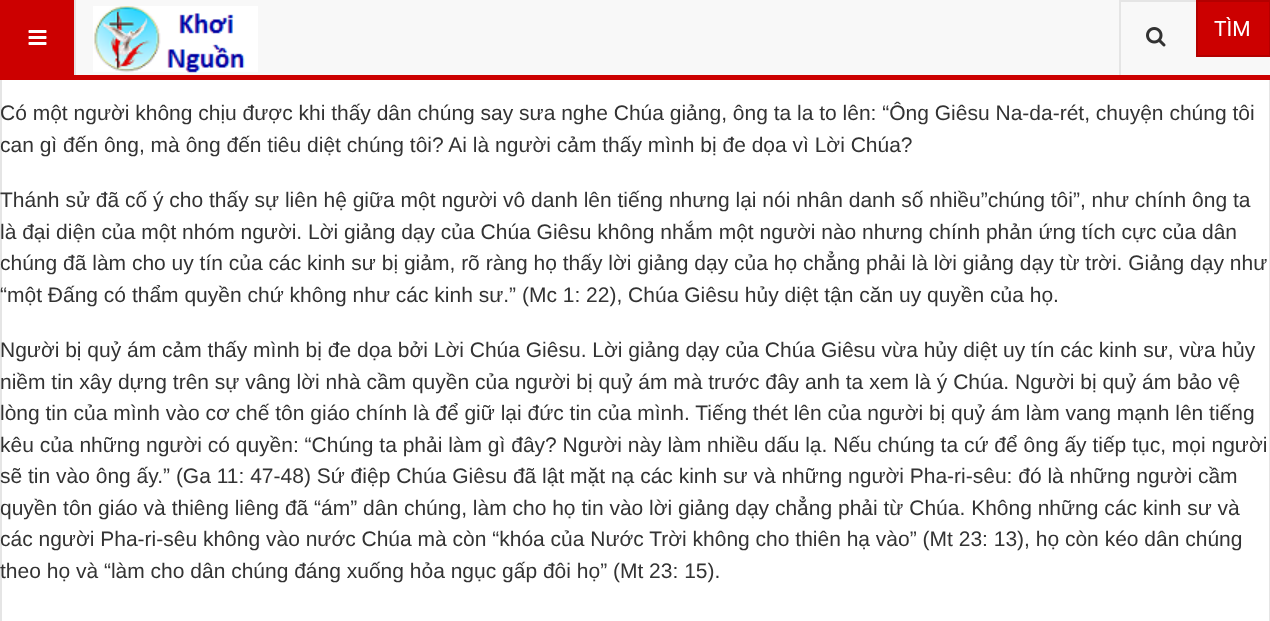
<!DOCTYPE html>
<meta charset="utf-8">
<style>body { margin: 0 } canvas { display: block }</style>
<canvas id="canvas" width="1270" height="621"></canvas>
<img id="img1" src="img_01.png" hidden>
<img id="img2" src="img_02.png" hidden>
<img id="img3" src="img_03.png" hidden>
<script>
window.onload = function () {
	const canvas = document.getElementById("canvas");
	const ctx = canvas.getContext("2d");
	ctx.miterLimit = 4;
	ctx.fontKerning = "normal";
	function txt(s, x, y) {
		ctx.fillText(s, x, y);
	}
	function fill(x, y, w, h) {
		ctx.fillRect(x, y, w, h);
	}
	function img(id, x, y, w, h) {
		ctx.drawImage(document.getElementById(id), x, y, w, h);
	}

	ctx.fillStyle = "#FFFFFF";
	fill(0, 0, 1270, 621);
	ctx.strokeStyle = "#E5E5E5";
	ctx.lineWidth = 2;
	ctx.strokeRect(1, -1, 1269, 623);
	ctx.fillStyle = "#F8F8F8";
	fill(76, 0, 1194, 75);
	ctx.fillStyle = "#CC0000";
	fill(0, 75, 1270, 5);
	fill(0, 0, 74, 75);
	ctx.fillStyle = "#E5E5E5";
	fill(74, 0, 2, 75);
	img("img1", 28, 30, 19, 15);
	img("img2", 93, 6, 165, 67);
	fill(1121, 0, 75, 2);
	fill(1119, 0, 2, 75);
	ctx.fillStyle = "#CC0000";
	ctx.beginPath();
	ctx.rect(1197, 1, 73, 55);
	ctx.fill();
	ctx.strokeStyle = "#B30000";
	ctx.stroke();
	img("img3", 1146, 27, 20, 20);
	ctx.font = "21px Roboto";
	ctx.fillStyle = "#FFFFFF";
	txt("TÌM", 1214, 36);
	ctx.font = "21px Liberation Sans";
	ctx.fillStyle = "#333333";
	txt("Có một người không chịu được khi thấy dân chúng say sưa nghe Chúa giảng, ông ta la to lên: “Ông Giêsu Na-da-rét, chuyện chúng tôi", 0, 120);
	txt("can gì đến ông, mà ông đến tiêu diệt chúng tôi? Ai là người cảm thấy mình bị đe dọa vì Lời Chúa?", 0, 152);
	txt("Thánh sử đã cố ý cho thấy sự liên hệ giữa một người vô danh lên tiếng nhưng lại nói nhân danh số nhiều”chúng tôi”, như chính ông ta", 0, 207);
	txt("là đại diện của một nhóm người. Lời giảng dạy của Chúa Giêsu không nhắm một người nào nhưng chính phản ứng tích cực của dân", 0, 239);
	txt("chúng đã làm cho uy tín của các kinh sư bị giảm, rõ ràng họ thấy lời giảng dạy của họ chẳng phải là lời giảng dạy từ trời. Giảng dạy như", 0, 270);
	txt("“một Đấng có thẩm quyền chứ không như các kinh sư.” (Mc 1: 22), Chúa Giêsu hủy diệt tận căn uy quyền của họ.", 0, 302);
	txt("Người bị quỷ ám cảm thấy mình bị đe dọa bởi Lời Chúa Giêsu. Lời giảng dạy của Chúa Giêsu vừa hủy diệt uy tín các kinh sư, vừa hủy", 0, 357);
	txt("niềm tin xây dựng trên sự vâng lời nhà cầm quyền của người bị quỷ ám mà trước đây anh ta xem là ý Chúa. Người bị quỷ ám bảo vệ", 0, 389);
	txt("lòng tin của mình vào cơ chế tôn giáo chính là để giữ lại đức tin của mình. Tiếng thét lên của người bị quỷ ám làm vang mạnh lên tiếng", 0, 420);
	txt("kêu của những người có quyền: “Chúng ta phải làm gì đây? Người này làm nhiều dấu lạ. Nếu chúng ta cứ để ông ấy tiếp tục, mọi người", 0, 452);
	txt("sẽ tin vào ông ấy.” (Ga 11: 47-48) Sứ điệp Chúa Giêsu đã lật mặt nạ các kinh sư và những người Pha-ri-sêu: đó là những người cầm", 0, 483);
	txt("quyền tôn giáo và thiêng liêng đã “ám” dân chúng, làm cho họ tin vào lời giảng dạy chẳng phải từ Chúa. Không những các kinh sư và", 0, 515);
	txt("các người Pha-ri-sêu không vào nước Chúa mà còn “khóa của Nước Trời không cho thiên hạ vào” (Mt 23: 13), họ còn kéo dân chúng", 0, 546);
	txt("theo họ và “làm cho dân chúng đáng xuống hỏa ngục gấp đôi họ” (Mt 23: 15).", 0, 578);
};
</script>
